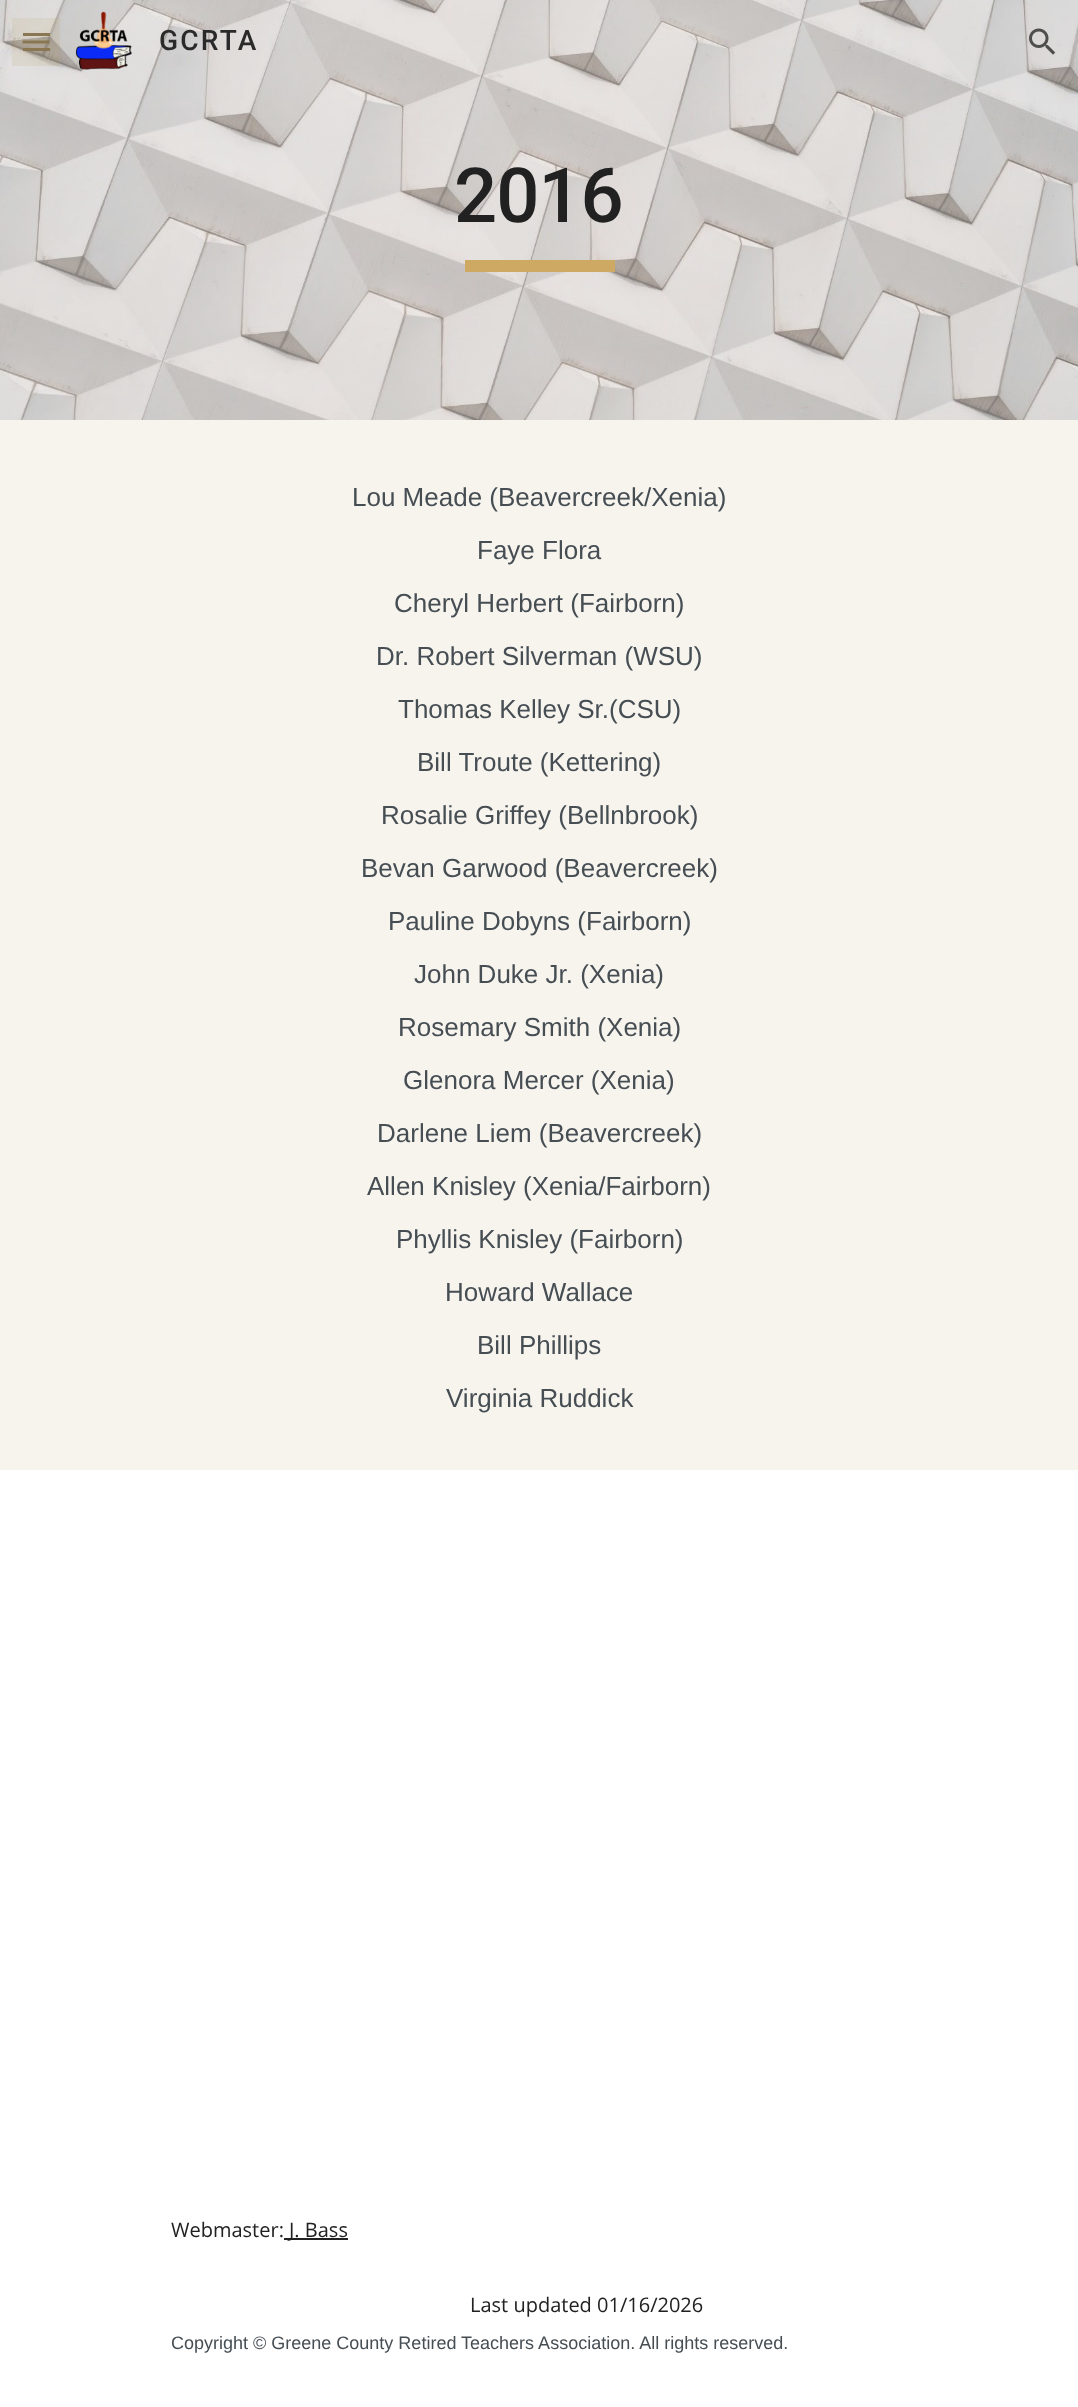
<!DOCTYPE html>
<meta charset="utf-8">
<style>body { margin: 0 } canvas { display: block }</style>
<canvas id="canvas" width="1078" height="2407"></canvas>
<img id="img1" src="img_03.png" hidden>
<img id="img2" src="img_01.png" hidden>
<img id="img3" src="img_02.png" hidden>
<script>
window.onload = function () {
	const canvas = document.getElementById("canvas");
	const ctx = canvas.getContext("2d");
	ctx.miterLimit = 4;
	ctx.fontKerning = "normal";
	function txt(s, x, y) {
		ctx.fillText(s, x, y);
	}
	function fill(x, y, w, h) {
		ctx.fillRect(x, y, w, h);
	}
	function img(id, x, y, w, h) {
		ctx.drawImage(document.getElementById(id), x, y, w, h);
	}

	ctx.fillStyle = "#FFFFFF";
	fill(0, 0, 1078, 2407);
	img("img1", 0, 0, 1078, 420);
	ctx.fillStyle = "#857251";
	fill(23, 33, 27, 3);
	ctx.beginPath();
	ctx.moveTo(22.5, 42);
	ctx.lineTo(49.5, 42);
	ctx.strokeStyle = "#857251";
	ctx.lineWidth = 3;
	ctx.stroke();
	fill(23, 48, 27, 3);
	ctx.fillStyle = "rgba(183, 153, 81, 0.12)";
	fill(12, 18, 48, 48);
	img("img2", 75, 11, 57, 59);
	img("img3", 1029, 28, 27, 27);
	ctx.fillStyle = "#CEA964";
	fill(465, 260, 150, 12);
	ctx.fillStyle = "#F7F4EE";
	fill(0, 420, 1078, 1050);
	ctx.fillStyle = "#212121";
	fill(284, 2238, 64, 2);
	ctx.letterSpacing = "2.25px";
	ctx.font = "500 28px Roboto";
	ctx.fillStyle = "#2B2A2A";
	txt("GCRTA", 159, 50);
	ctx.letterSpacing = "-1px";
	ctx.font = "500 76px Roboto";
	ctx.fillStyle = "#212121";
	txt("2016", 454, 222);
	ctx.letterSpacing = "0px";
	ctx.font = "26px Liberation Sans";
	ctx.fillStyle = "#464E54";
	txt("Lou Meade (Beavercreek/Xenia)", 352, 506);
	txt("Faye Flora", 477, 559);
	txt("Cheryl Herbert (Fairborn)", 394, 612);
	txt("Dr. Robert Silverman (WSU)", 376, 665);
	txt("Thomas Kelley Sr.(CSU)", 398, 718);
	txt("Bill Troute (Kettering)", 417, 771);
	txt("Rosalie Griffey (Bellnbrook)", 381, 824);
	txt("Bevan Garwood (Beavercreek)", 361, 877);
	txt("Pauline Dobyns (Fairborn)", 388, 930);
	txt("John Duke Jr. (Xenia)", 414, 983);
	txt("Rosemary Smith (Xenia)", 398, 1036);
	txt("Glenora Mercer (Xenia)", 403, 1089);
	txt("Darlene Liem (Beavercreek)", 377, 1142);
	txt("Allen Knisley (Xenia/Fairborn)", 367, 1195);
	txt("Phyllis Knisley (Fairborn)", 396, 1248);
	txt("Howard Wallace", 445, 1301);
	txt("Bill Phillips", 477, 1354);
	txt("Virginia Ruddick", 446, 1407);
	ctx.font = "20px Open Sans";
	ctx.fillStyle = "#212121";
	txt("Webmaster:", 171, 2237);
	txt("J. Bass", 289, 2237);
	txt("Last updated 01/16/2026", 470, 2312);
	ctx.font = "18px Liberation Sans";
	ctx.fillStyle = "#464E54";
	txt("Copyright © Greene County Retired Teachers Association. All rights reserved.", 171, 2349);
};
</script>
